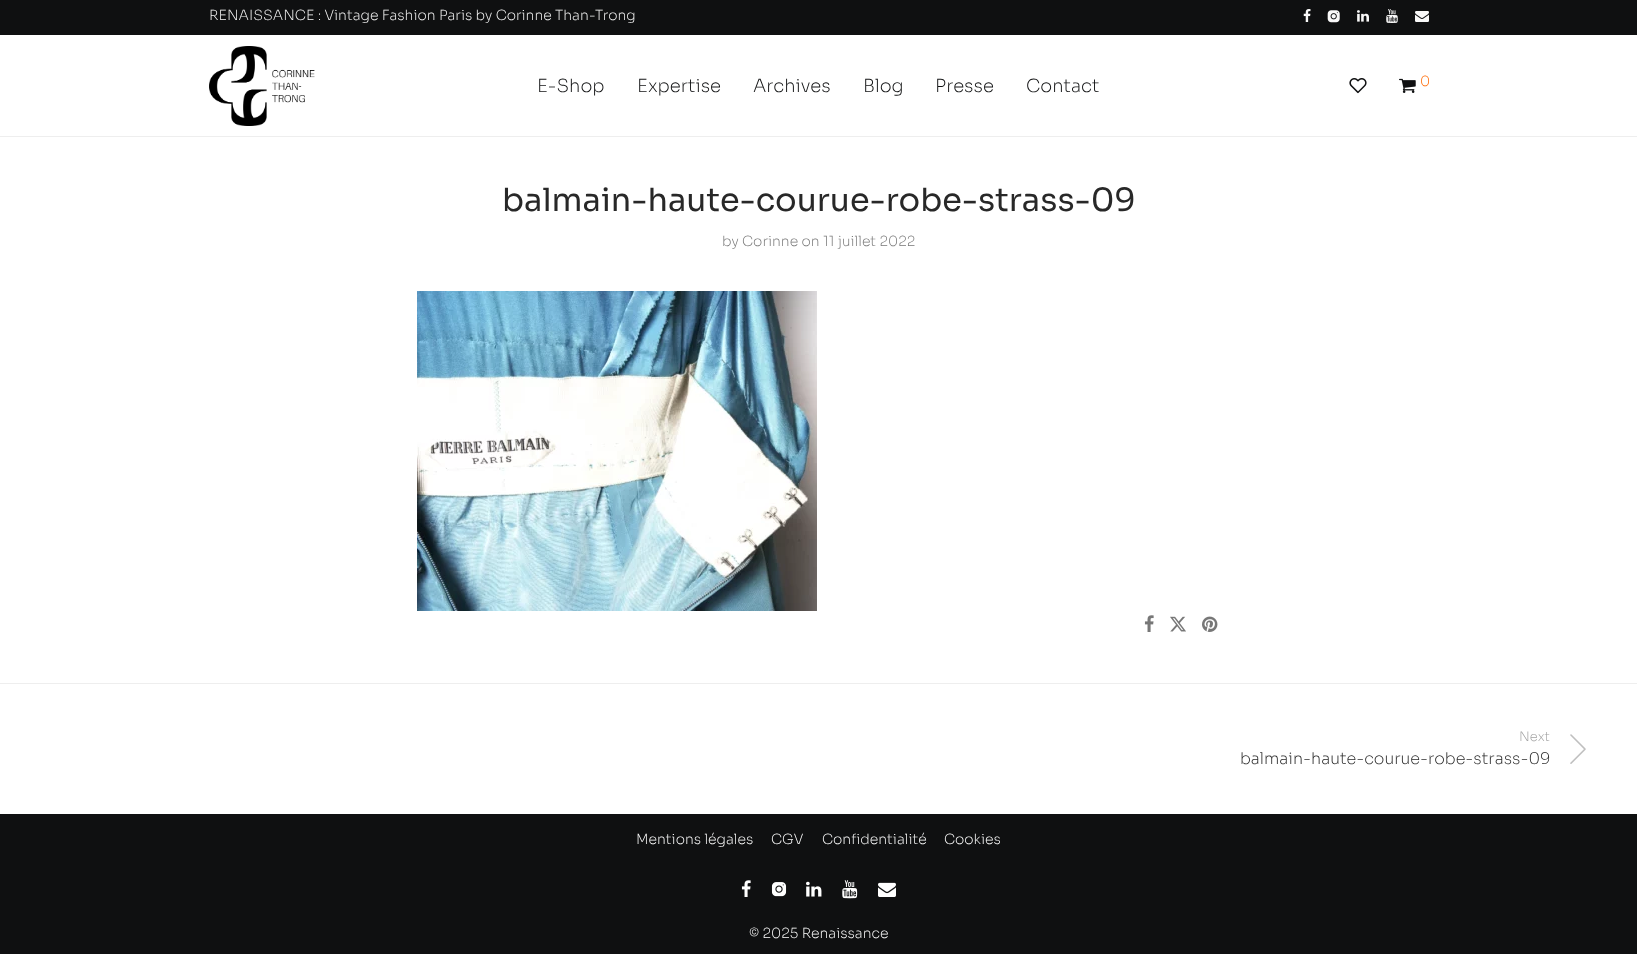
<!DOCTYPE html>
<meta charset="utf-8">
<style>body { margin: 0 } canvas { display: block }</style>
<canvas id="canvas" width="1637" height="954"></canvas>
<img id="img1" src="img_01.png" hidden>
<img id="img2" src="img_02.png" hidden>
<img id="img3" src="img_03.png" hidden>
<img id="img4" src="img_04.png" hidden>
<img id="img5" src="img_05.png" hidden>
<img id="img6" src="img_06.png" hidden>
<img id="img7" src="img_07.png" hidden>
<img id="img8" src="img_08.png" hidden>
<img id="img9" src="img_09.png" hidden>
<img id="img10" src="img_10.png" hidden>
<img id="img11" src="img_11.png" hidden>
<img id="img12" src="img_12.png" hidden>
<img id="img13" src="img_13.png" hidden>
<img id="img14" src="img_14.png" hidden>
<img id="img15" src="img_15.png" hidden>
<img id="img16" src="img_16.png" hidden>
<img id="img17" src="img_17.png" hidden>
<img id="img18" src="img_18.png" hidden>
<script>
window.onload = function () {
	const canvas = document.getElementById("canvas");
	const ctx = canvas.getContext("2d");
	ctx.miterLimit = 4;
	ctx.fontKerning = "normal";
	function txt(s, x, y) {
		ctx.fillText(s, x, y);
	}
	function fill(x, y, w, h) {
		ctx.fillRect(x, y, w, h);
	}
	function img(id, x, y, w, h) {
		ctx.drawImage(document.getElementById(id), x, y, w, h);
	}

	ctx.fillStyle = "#FFFFFF";
	fill(0, 0, 1637, 954);
	ctx.fillStyle = "#0F1011";
	fill(0, 0, 1637, 35);
	img("img1", 1303, 9, 8, 13);
	img("img2", 1327, 10, 13, 13);
	img("img3", 1357, 10, 12, 12);
	img("img4", 1386, 9, 12, 14);
	img("img5", 1415, 11, 14, 11);
	ctx.fillStyle = "#EEEEEE";
	fill(0, 136, 1637, 1);
	img("img6", 209, 46, 106, 80);
	img("img7", 1349, 78, 18, 16);
	img("img8", 1399, 78, 17, 15);
	img("img9", 417, 291, 400, 320);
	img("img10", 1144, 615, 10, 17);
	img("img11", 1170, 616, 16, 16);
	img("img12", 1202, 616, 16, 16);
	fill(0, 683, 1637, 1);
	img("img13", 1570, 734, 16, 30);
	ctx.fillStyle = "#0F1011";
	fill(0, 814, 1637, 140);
	img("img14", 741, 880, 10, 17);
	img("img15", 771, 882, 16, 15);
	img("img16", 806, 881, 16, 16);
	img("img17", 842, 880, 16, 19);
	img("img18", 878, 882, 18, 15);
	ctx.font = "200 14px Sora";
	ctx.fillStyle = "#F9F9F9";
	txt("RENAISSANCE : Vintage Fashion Paris by Corinne Than-Trong", 209, 20);
	ctx.font = "200 18px Sora";
	ctx.fillStyle = "#0F1011";
	txt("E-Shop", 537, 92);
	txt("Expertise", 637, 92);
	txt("Archives", 753, 92);
	txt("Blog", 863, 92);
	txt("Presse", 935, 92);
	txt("Contact", 1026, 92);
	ctx.font = "200 14px Sora";
	ctx.fillStyle = "#FF6800";
	txt("0", 1420, 86);
	ctx.font = "32px Sora";
	ctx.fillStyle = "#282828";
	txt("balmain-haute-courue-robe-strass-09", 502, 211);
	ctx.font = "200 14px Sora";
	ctx.fillStyle = "#777777";
	txt("by Corinne on 11 juillet 2022", 722, 246);
	ctx.font = "200 13px Sora";
	ctx.fillStyle = "#A1A1A1";
	txt("Next", 1519, 741);
	ctx.font = "200 16px Sora";
	ctx.fillStyle = "#282828";
	txt("balmain-haute-courue-robe-strass-09", 1240, 764);
	ctx.font = "200 14px Sora";
	ctx.fillStyle = "#FFFFFF";
	txt("Mentions légales", 636, 844);
	txt("CGV", 771, 844);
	txt("Confidentialité", 822, 844);
	txt("Cookies", 944, 844);
	txt("© 2025 Renaissance", 749, 938);
};
</script>
